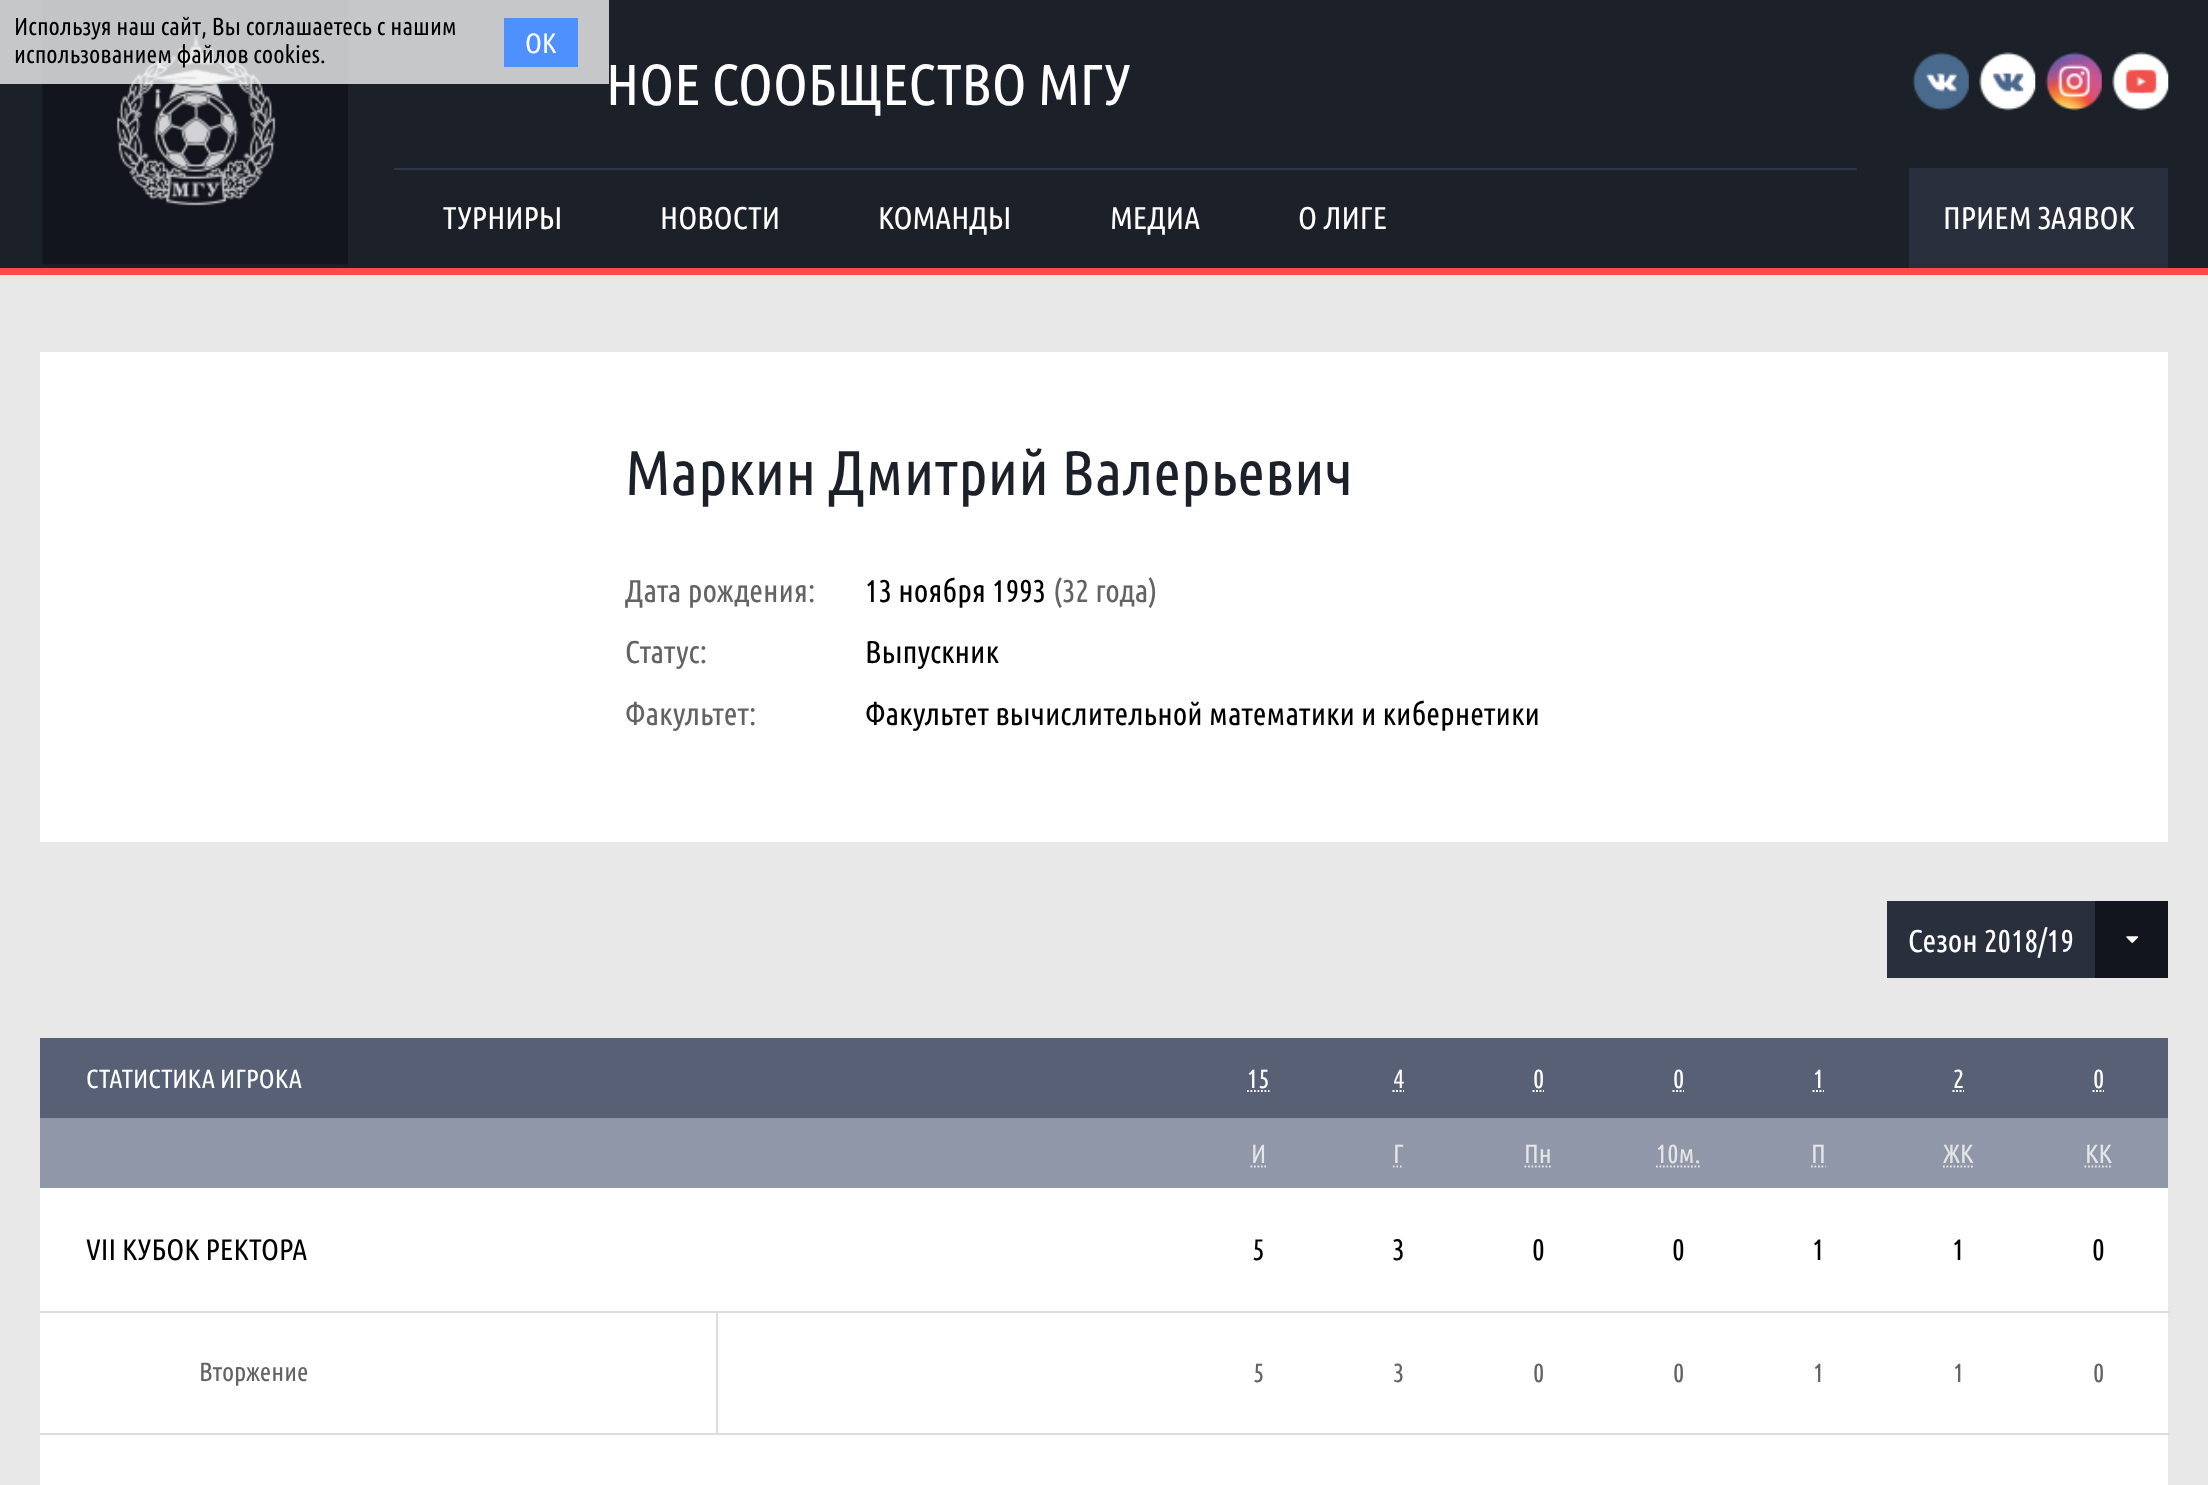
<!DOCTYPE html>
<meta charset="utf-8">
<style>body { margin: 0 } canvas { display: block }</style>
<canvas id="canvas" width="2208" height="1485"></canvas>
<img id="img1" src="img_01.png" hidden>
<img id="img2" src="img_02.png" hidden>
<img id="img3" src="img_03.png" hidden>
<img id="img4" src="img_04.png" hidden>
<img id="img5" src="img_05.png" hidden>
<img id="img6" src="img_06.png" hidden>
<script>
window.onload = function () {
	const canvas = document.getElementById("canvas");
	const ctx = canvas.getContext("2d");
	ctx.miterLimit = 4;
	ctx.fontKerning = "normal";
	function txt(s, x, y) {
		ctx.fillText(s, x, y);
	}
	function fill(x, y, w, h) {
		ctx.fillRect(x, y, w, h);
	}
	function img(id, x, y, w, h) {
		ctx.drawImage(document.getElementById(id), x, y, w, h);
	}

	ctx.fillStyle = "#E8E8E8";
	fill(0, 0, 2208, 1485);
	ctx.fillStyle = "#1C2029";
	fill(0, 0, 2208, 268);
	img("img1", 42, 0, 306, 265);
	ctx.fillStyle = "rgba(255, 255, 255, 0.75)";
	fill(0, 0, 609, 84);
	ctx.fillStyle = "#4D90FE";
	fill(504, 18, 74, 49);
	ctx.fillStyle = "#FF4847";
	fill(0, 268, 2208, 7);
	ctx.fillStyle = "#2E374A";
	fill(394, 168, 1463, 2);
	img("img2", 1912, 52, 57, 59);
	img("img3", 1979, 52, 57, 59);
	img("img4", 2045, 52, 57, 59);
	img("img5", 2112, 52, 57, 59);
	ctx.fillStyle = "#292F3C";
	fill(1909, 168, 259, 100);
	ctx.fillStyle = "#FFFFFF";
	fill(40, 352, 2128, 490);
	ctx.fillStyle = "#292F3C";
	fill(1887, 901, 208, 77);
	ctx.fillStyle = "#12151D";
	fill(2095, 901, 73, 77);
	img("img6", 2126, 936, 13, 7);
	ctx.fillStyle = "#FFFFFF";
	fill(40, 1188, 2128, 297);
	ctx.fillStyle = "#576075";
	fill(40, 1038, 2128, 80);
	ctx.beginPath();
	ctx.moveTo(1247, 1091);
	ctx.lineTo(1269.5, 1091);
	ctx.strokeStyle = "#FFFFFF";
	ctx.lineWidth = 1.8;
	ctx.setLineDash([1.75, 1.75]);
	ctx.stroke();
	ctx.beginPath();
	ctx.moveTo(1392.5, 1091);
	ctx.lineTo(1394.5, 1091);
	ctx.moveTo(1396, 1091);
	ctx.lineTo(1398, 1091);
	ctx.moveTo(1399.5, 1091);
	ctx.lineTo(1401.5, 1091);
	ctx.moveTo(1403, 1091);
	ctx.lineTo(1404, 1091);
	ctx.setLineDash([]);
	ctx.stroke();
	ctx.beginPath();
	ctx.moveTo(1532.5, 1091);
	ctx.lineTo(1534.5, 1091);
	ctx.moveTo(1536, 1091);
	ctx.lineTo(1538, 1091);
	ctx.moveTo(1539.5, 1091);
	ctx.lineTo(1541.5, 1091);
	ctx.moveTo(1543, 1091);
	ctx.lineTo(1544, 1091);
	ctx.stroke();
	ctx.beginPath();
	ctx.moveTo(1672.5, 1091);
	ctx.lineTo(1674.5, 1091);
	ctx.moveTo(1676, 1091);
	ctx.lineTo(1678, 1091);
	ctx.moveTo(1679.5, 1091);
	ctx.lineTo(1681.5, 1091);
	ctx.moveTo(1683, 1091);
	ctx.lineTo(1684, 1091);
	ctx.stroke();
	ctx.beginPath();
	ctx.moveTo(1812.5, 1091);
	ctx.lineTo(1814.5, 1091);
	ctx.moveTo(1816, 1091);
	ctx.lineTo(1818, 1091);
	ctx.moveTo(1819.5, 1091);
	ctx.lineTo(1821.5, 1091);
	ctx.moveTo(1823, 1091);
	ctx.lineTo(1824, 1091);
	ctx.stroke();
	ctx.beginPath();
	ctx.moveTo(1952.5, 1091);
	ctx.lineTo(1954.5, 1091);
	ctx.moveTo(1956, 1091);
	ctx.lineTo(1958, 1091);
	ctx.moveTo(1959.5, 1091);
	ctx.lineTo(1961.5, 1091);
	ctx.moveTo(1963, 1091);
	ctx.lineTo(1964, 1091);
	ctx.stroke();
	ctx.beginPath();
	ctx.moveTo(2092.5, 1091);
	ctx.lineTo(2094.5, 1091);
	ctx.moveTo(2096, 1091);
	ctx.lineTo(2098, 1091);
	ctx.moveTo(2099.5, 1091);
	ctx.lineTo(2101.5, 1091);
	ctx.moveTo(2103, 1091);
	ctx.lineTo(2104, 1091);
	ctx.stroke();
	ctx.fillStyle = "#9097A8";
	fill(40, 1118, 2128, 70);
	ctx.beginPath();
	ctx.moveTo(1250.5, 1166.5);
	ctx.lineTo(1266, 1166.5);
	ctx.strokeStyle = "#E5E5E5";
	ctx.setLineDash([1.75, 1.75]);
	ctx.stroke();
	ctx.beginPath();
	ctx.moveTo(1393, 1166.5);
	ctx.lineTo(1394.5, 1166.5);
	ctx.moveTo(1396.5, 1166.5);
	ctx.lineTo(1398, 1166.5);
	ctx.moveTo(1400, 1166.5);
	ctx.lineTo(1401.5, 1166.5);
	ctx.moveTo(1403.5, 1166.5);
	ctx.lineTo(1403.5, 1166.5);
	ctx.setLineDash([]);
	ctx.stroke();
	ctx.beginPath();
	ctx.moveTo(1524.5, 1166.5);
	ctx.lineTo(1552, 1166.5);
	ctx.setLineDash([1.75, 1.75]);
	ctx.stroke();
	ctx.beginPath();
	ctx.moveTo(1656, 1166.5);
	ctx.lineTo(1700.5, 1166.5);
	ctx.stroke();
	ctx.beginPath();
	ctx.moveTo(1811, 1166.5);
	ctx.lineTo(1825.5, 1166.5);
	ctx.stroke();
	ctx.beginPath();
	ctx.moveTo(1943, 1166.5);
	ctx.lineTo(1973.5, 1166.5);
	ctx.stroke();
	ctx.beginPath();
	ctx.moveTo(2084.5, 1166.5);
	ctx.lineTo(2112, 1166.5);
	ctx.stroke();
	ctx.fillStyle = "#DDDDDD";
	fill(40, 1311, 2130, 2);
	fill(40, 1433, 2130, 2);
	fill(716, 1311, 2, 124);
	ctx.font = "24.5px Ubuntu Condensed";
	ctx.fillStyle = "#000000";
	txt("Используя наш сайт, Вы соглашаетесь с нашим", 14, 35);
	txt("использованием файлов cookies.", 14, 63);
	ctx.font = "28px Ubuntu Condensed";
	ctx.fillStyle = "#FFFFFF";
	txt("ОК", 525, 53);
	ctx.font = "57.75px Ubuntu Condensed";
	txt("НОЕ СООБЩЕСТВО МГУ", 606, 105);
	ctx.font = "31.5px Ubuntu Condensed";
	txt("ТУРНИРЫ", 443, 229);
	txt("НОВОСТИ", 660, 229);
	txt("КОМАНДЫ", 878, 229);
	txt("МЕДИА", 1110, 229);
	txt("О ЛИГЕ", 1298, 229);
	txt("ПРИЕМ ЗАЯВОК", 1943, 229);
	ctx.font = "63px Ubuntu Condensed";
	ctx.fillStyle = "#1C2029";
	txt("Маркин Дмитрий Валерьевич", 625, 495);
	ctx.font = "31.5px Ubuntu Condensed";
	ctx.fillStyle = "#636363";
	txt("Дата рождения:", 625, 602);
	ctx.fillStyle = "#000000";
	txt("13 ноября 1993", 865, 602);
	ctx.fillStyle = "#636363";
	txt("(32 года)", 1053, 602);
	txt("Статус:", 625, 663);
	ctx.fillStyle = "#000000";
	txt("Выпускник", 865, 663);
	ctx.fillStyle = "#636363";
	txt("Факультет:", 625, 725);
	ctx.fillStyle = "#000000";
	txt("Факультет вычислительной математики и кибернетики", 865, 725);
	ctx.fillStyle = "#FFFFFF";
	txt("Сезон 2018/19", 1908, 952);
	ctx.font = "26.25px Ubuntu Condensed";
	txt("СТАТИСТИКА ИГРОКА", 86, 1088);
	txt("15", 1247, 1088);
	txt("4", 1393, 1088);
	txt("0", 1533, 1088);
	txt("0", 1673, 1088);
	txt("1", 1813, 1088);
	txt("2", 1953, 1088);
	txt("0", 2093, 1088);
	ctx.fillStyle = "#E5E5E5";
	txt("И", 1251, 1163);
	txt("Г", 1393, 1163);
	txt("Пн", 1524, 1163);
	txt("10м.", 1656, 1163);
	txt("П", 1811, 1163);
	txt("ЖК", 1943, 1163);
	txt("КК", 2085, 1163);
	ctx.font = "29.75px Ubuntu Condensed";
	ctx.fillStyle = "#000000";
	txt("VII КУБОК РЕКТОРА", 86, 1260);
	txt("5", 1252, 1260);
	txt("3", 1392, 1260);
	txt("0", 1532, 1260);
	txt("0", 1672, 1260);
	txt("1", 1812, 1260);
	txt("1", 1952, 1260);
	txt("0", 2092, 1260);
	ctx.font = "26.25px Ubuntu Condensed";
	ctx.fillStyle = "#636363";
	txt("Вторжение", 199, 1381);
	txt("5", 1253, 1382);
	txt("3", 1393, 1382);
	txt("0", 1533, 1382);
	txt("0", 1673, 1382);
	txt("1", 1813, 1382);
	txt("1", 1953, 1382);
	txt("0", 2093, 1382);
};
</script>
